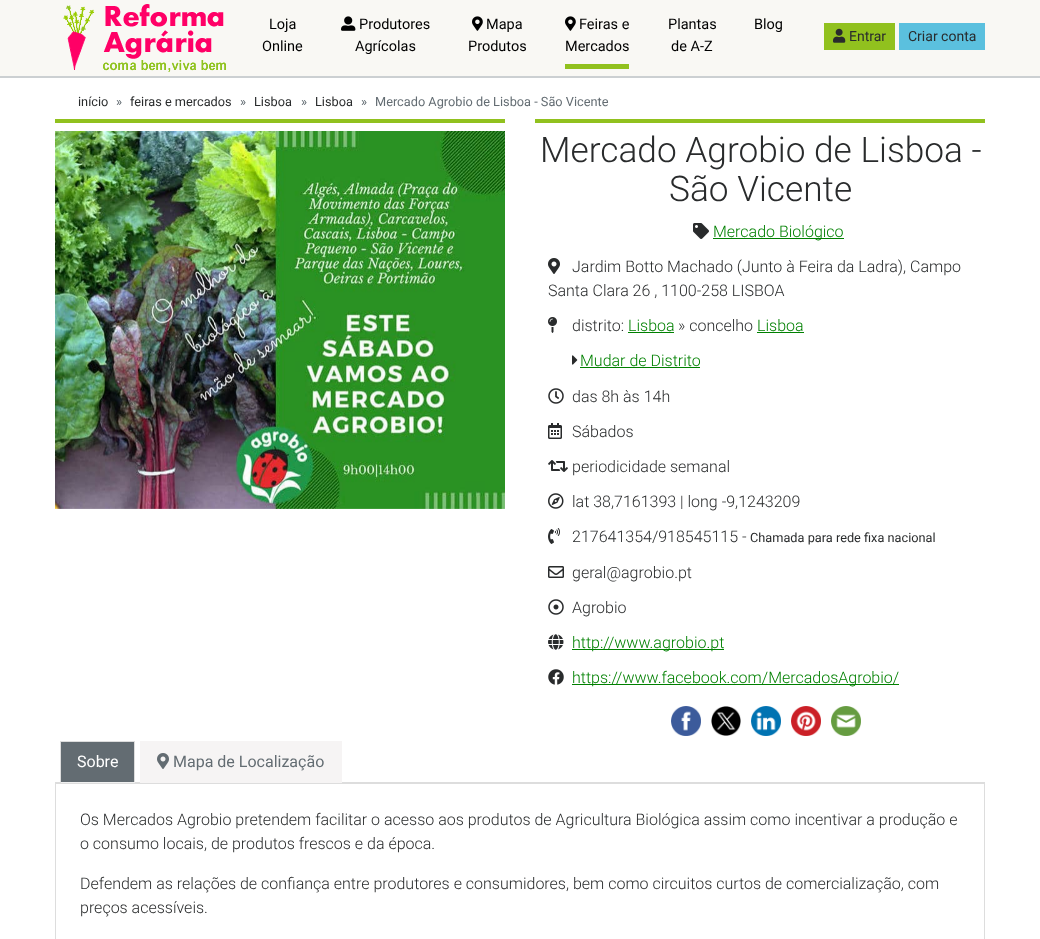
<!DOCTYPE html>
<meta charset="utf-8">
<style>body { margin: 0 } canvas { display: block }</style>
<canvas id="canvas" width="1040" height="939"></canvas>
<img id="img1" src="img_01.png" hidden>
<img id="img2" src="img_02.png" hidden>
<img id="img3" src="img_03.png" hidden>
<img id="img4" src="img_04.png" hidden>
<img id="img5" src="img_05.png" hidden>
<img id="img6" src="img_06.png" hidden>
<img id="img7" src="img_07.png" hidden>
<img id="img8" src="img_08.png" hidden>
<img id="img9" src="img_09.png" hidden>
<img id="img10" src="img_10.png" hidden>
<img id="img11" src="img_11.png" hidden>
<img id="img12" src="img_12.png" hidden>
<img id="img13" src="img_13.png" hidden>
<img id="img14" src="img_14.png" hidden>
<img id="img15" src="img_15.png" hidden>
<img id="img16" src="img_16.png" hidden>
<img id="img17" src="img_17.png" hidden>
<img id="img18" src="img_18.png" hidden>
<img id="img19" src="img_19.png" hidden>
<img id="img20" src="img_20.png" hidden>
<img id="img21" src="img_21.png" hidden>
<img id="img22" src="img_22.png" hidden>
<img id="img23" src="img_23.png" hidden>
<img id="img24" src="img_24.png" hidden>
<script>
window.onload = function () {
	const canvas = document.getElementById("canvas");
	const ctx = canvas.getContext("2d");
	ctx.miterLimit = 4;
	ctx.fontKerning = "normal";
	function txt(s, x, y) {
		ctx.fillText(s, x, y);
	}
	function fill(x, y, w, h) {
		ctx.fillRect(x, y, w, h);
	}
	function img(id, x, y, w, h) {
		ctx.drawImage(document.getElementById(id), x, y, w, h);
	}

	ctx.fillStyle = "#FFFFFF";
	fill(0, 0, 1040, 939);
	ctx.fillStyle = "#CCD0D2";
	fill(0, 76, 1040, 2);
	ctx.fillStyle = "#F9F8F4";
	fill(0, 0, 1040, 76);
	img("img1", 63, 4, 163, 68);
	img("img2", 341, 16, 15, 15);
	img("img3", 472, 16, 11, 15);
	ctx.fillStyle = "#91C11E";
	fill(565, 64, 64, 5);
	img("img3", 565, 16, 11, 15);
	fill(824, 23, 71, 27);
	img("img4", 833, 28, 13, 15);
	ctx.fillStyle = "#5BC0DE";
	fill(899, 23, 86, 27);
	ctx.fillStyle = "#91C11E";
	fill(55, 119, 450, 4);
	img("img5", 55, 131, 450, 378);
	fill(535, 119, 450, 4);
	img("img6", 693, 223, 16, 16);
	ctx.fillStyle = "#008000";
	fill(713, 238, 131, 1);
	img("img7", 548, 258, 12, 16);
	img("img8", 548, 317, 9, 16);
	fill(628, 332, 46, 1);
	fill(757, 332, 47, 1);
	img("img9", 572, 355, 6, 10);
	fill(580, 367, 120, 1);
	img("img10", 548, 388, 16, 16);
	img("img11", 548, 423, 14, 16);
	img("img12", 548, 460, 20, 12);
	img("img13", 548, 493, 16, 16);
	img("img14", 548, 528, 12, 16);
	img("img15", 548, 566, 16, 12);
	img("img16", 548, 599, 16, 16);
	img("img17", 548, 634, 16, 16);
	fill(572, 649, 152, 1);
	img("img18", 548, 669, 16, 16);
	fill(572, 684, 327, 1);
	img("img19", 671, 706, 30, 30);
	img("img20", 711, 706, 30, 30);
	img("img21", 751, 706, 30, 30);
	img("img22", 791, 706, 30, 30);
	img("img23", 831, 706, 30, 30);
	ctx.fillStyle = "#DDDDDD";
	fill(55, 782, 930, 1);
	ctx.fillStyle = "#636C72";
	fill(61, 742, 73, 40);
	ctx.fillStyle = "#DDDDDD";
	fill(60, 741, 75, 1);
	fill(134, 741, 1, 42);
	ctx.fillStyle = "#F0F0F0";
	fill(60, 782, 75, 1);
	ctx.fillStyle = "#DDDDDD";
	fill(60, 741, 1, 42);
	ctx.fillStyle = "#F6F4F4";
	fill(140, 741, 202, 42);
	img("img24", 157, 753, 12, 16);
	ctx.strokeStyle = "#DDDDDD";
	ctx.strokeRect(55.5, 783.5, 929, 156);
	ctx.font = "14.5px Roboto";
	ctx.fillStyle = "#000000";
	txt("Loja", 269, 29);
	txt("Online", 262, 51);
	txt("Produtores", 359, 29);
	txt("Agrícolas", 355, 51);
	txt("Mapa", 486, 29);
	txt("Produtos", 468, 51);
	txt("Feiras e", 579, 29);
	txt("Mercados", 565, 51);
	txt("Plantas", 668, 29);
	txt("de A-Z", 671, 51);
	txt("Blog", 754, 29);
	ctx.font = "14px Roboto";
	ctx.fillStyle = "#292B2C";
	txt("Entrar", 849, 41);
	txt("Criar conta", 908, 41);
	ctx.font = "12.75px Roboto";
	txt("início", 78, 106);
	ctx.fillStyle = "#636C72";
	txt("»", 116, 106);
	ctx.fillStyle = "#292B2C";
	txt("feiras e mercados", 130, 106);
	ctx.fillStyle = "#636C72";
	txt("»", 240, 106);
	ctx.fillStyle = "#292B2C";
	txt("Lisboa", 254, 106);
	ctx.fillStyle = "#636C72";
	txt("»", 301, 106);
	ctx.fillStyle = "#292B2C";
	txt("Lisboa", 315, 106);
	ctx.fillStyle = "#636C72";
	txt("»", 361, 106);
	txt("Mercado Agrobio de Lisboa - São Vicente", 375, 106);
	ctx.font = "300 35.25px Roboto";
	ctx.fillStyle = "#292B2C";
	txt("Mercado Agrobio de Lisboa -", 540, 162);
	txt("São Vicente", 669, 201);
	ctx.font = "300 16px Roboto";
	ctx.fillStyle = "#008000";
	txt("Mercado Biológico", 713, 237);
	ctx.fillStyle = "#292B2C";
	txt("Jardim Botto Machado (Junto à Feira da Ladra), Campo", 572, 272);
	txt("Santa Clara 26 , 1100-258 LISBOA", 548, 296);
	txt("distrito:", 572, 331);
	ctx.fillStyle = "#008000";
	txt("Lisboa", 628, 331);
	ctx.fillStyle = "#292B2C";
	txt("» concelho", 678, 331);
	ctx.fillStyle = "#008000";
	txt("Lisboa", 757, 331);
	txt("Mudar de Distrito", 580, 366);
	ctx.fillStyle = "#292B2C";
	txt("das 8h às 14h", 572, 402);
	txt("Sábados", 572, 437);
	txt("periodicidade semanal", 572, 472);
	txt("lat 38,7161393 | long -9,1243209", 572, 507);
	txt("217641354/918545115 -", 572, 542);
	ctx.font = "12.75px Roboto";
	txt("Chamada para rede fixa nacional", 750, 542);
	ctx.font = "300 16px Roboto";
	txt("geral@agrobio.pt", 572, 578);
	txt("Agrobio", 572, 613);
	ctx.fillStyle = "#008000";
	txt("http://www.agrobio.pt", 572, 648);
	txt("https://www.facebook.com/MercadosAgrobio/", 572, 683);
	ctx.font = "16px Roboto";
	ctx.fillStyle = "#FFFFFF";
	txt("Sobre", 77, 767);
	ctx.fillStyle = "#636C72";
	txt("Mapa de Localização", 173, 767);
	ctx.font = "300 16px Roboto";
	ctx.fillStyle = "#292B2C";
	txt("Os Mercados Agrobio pretendem facilitar o acesso aos produtos de Agricultura Biológica assim como incentivar a produção e", 80, 825);
	txt("o consumo locais, de produtos frescos e da época.", 80, 849);
	txt("Defendem as relações de confiança entre produtores e consumidores, bem como circuitos curtos de comercialização, com", 80, 889);
	txt("preços acessíveis.", 80, 913);
};
</script>
